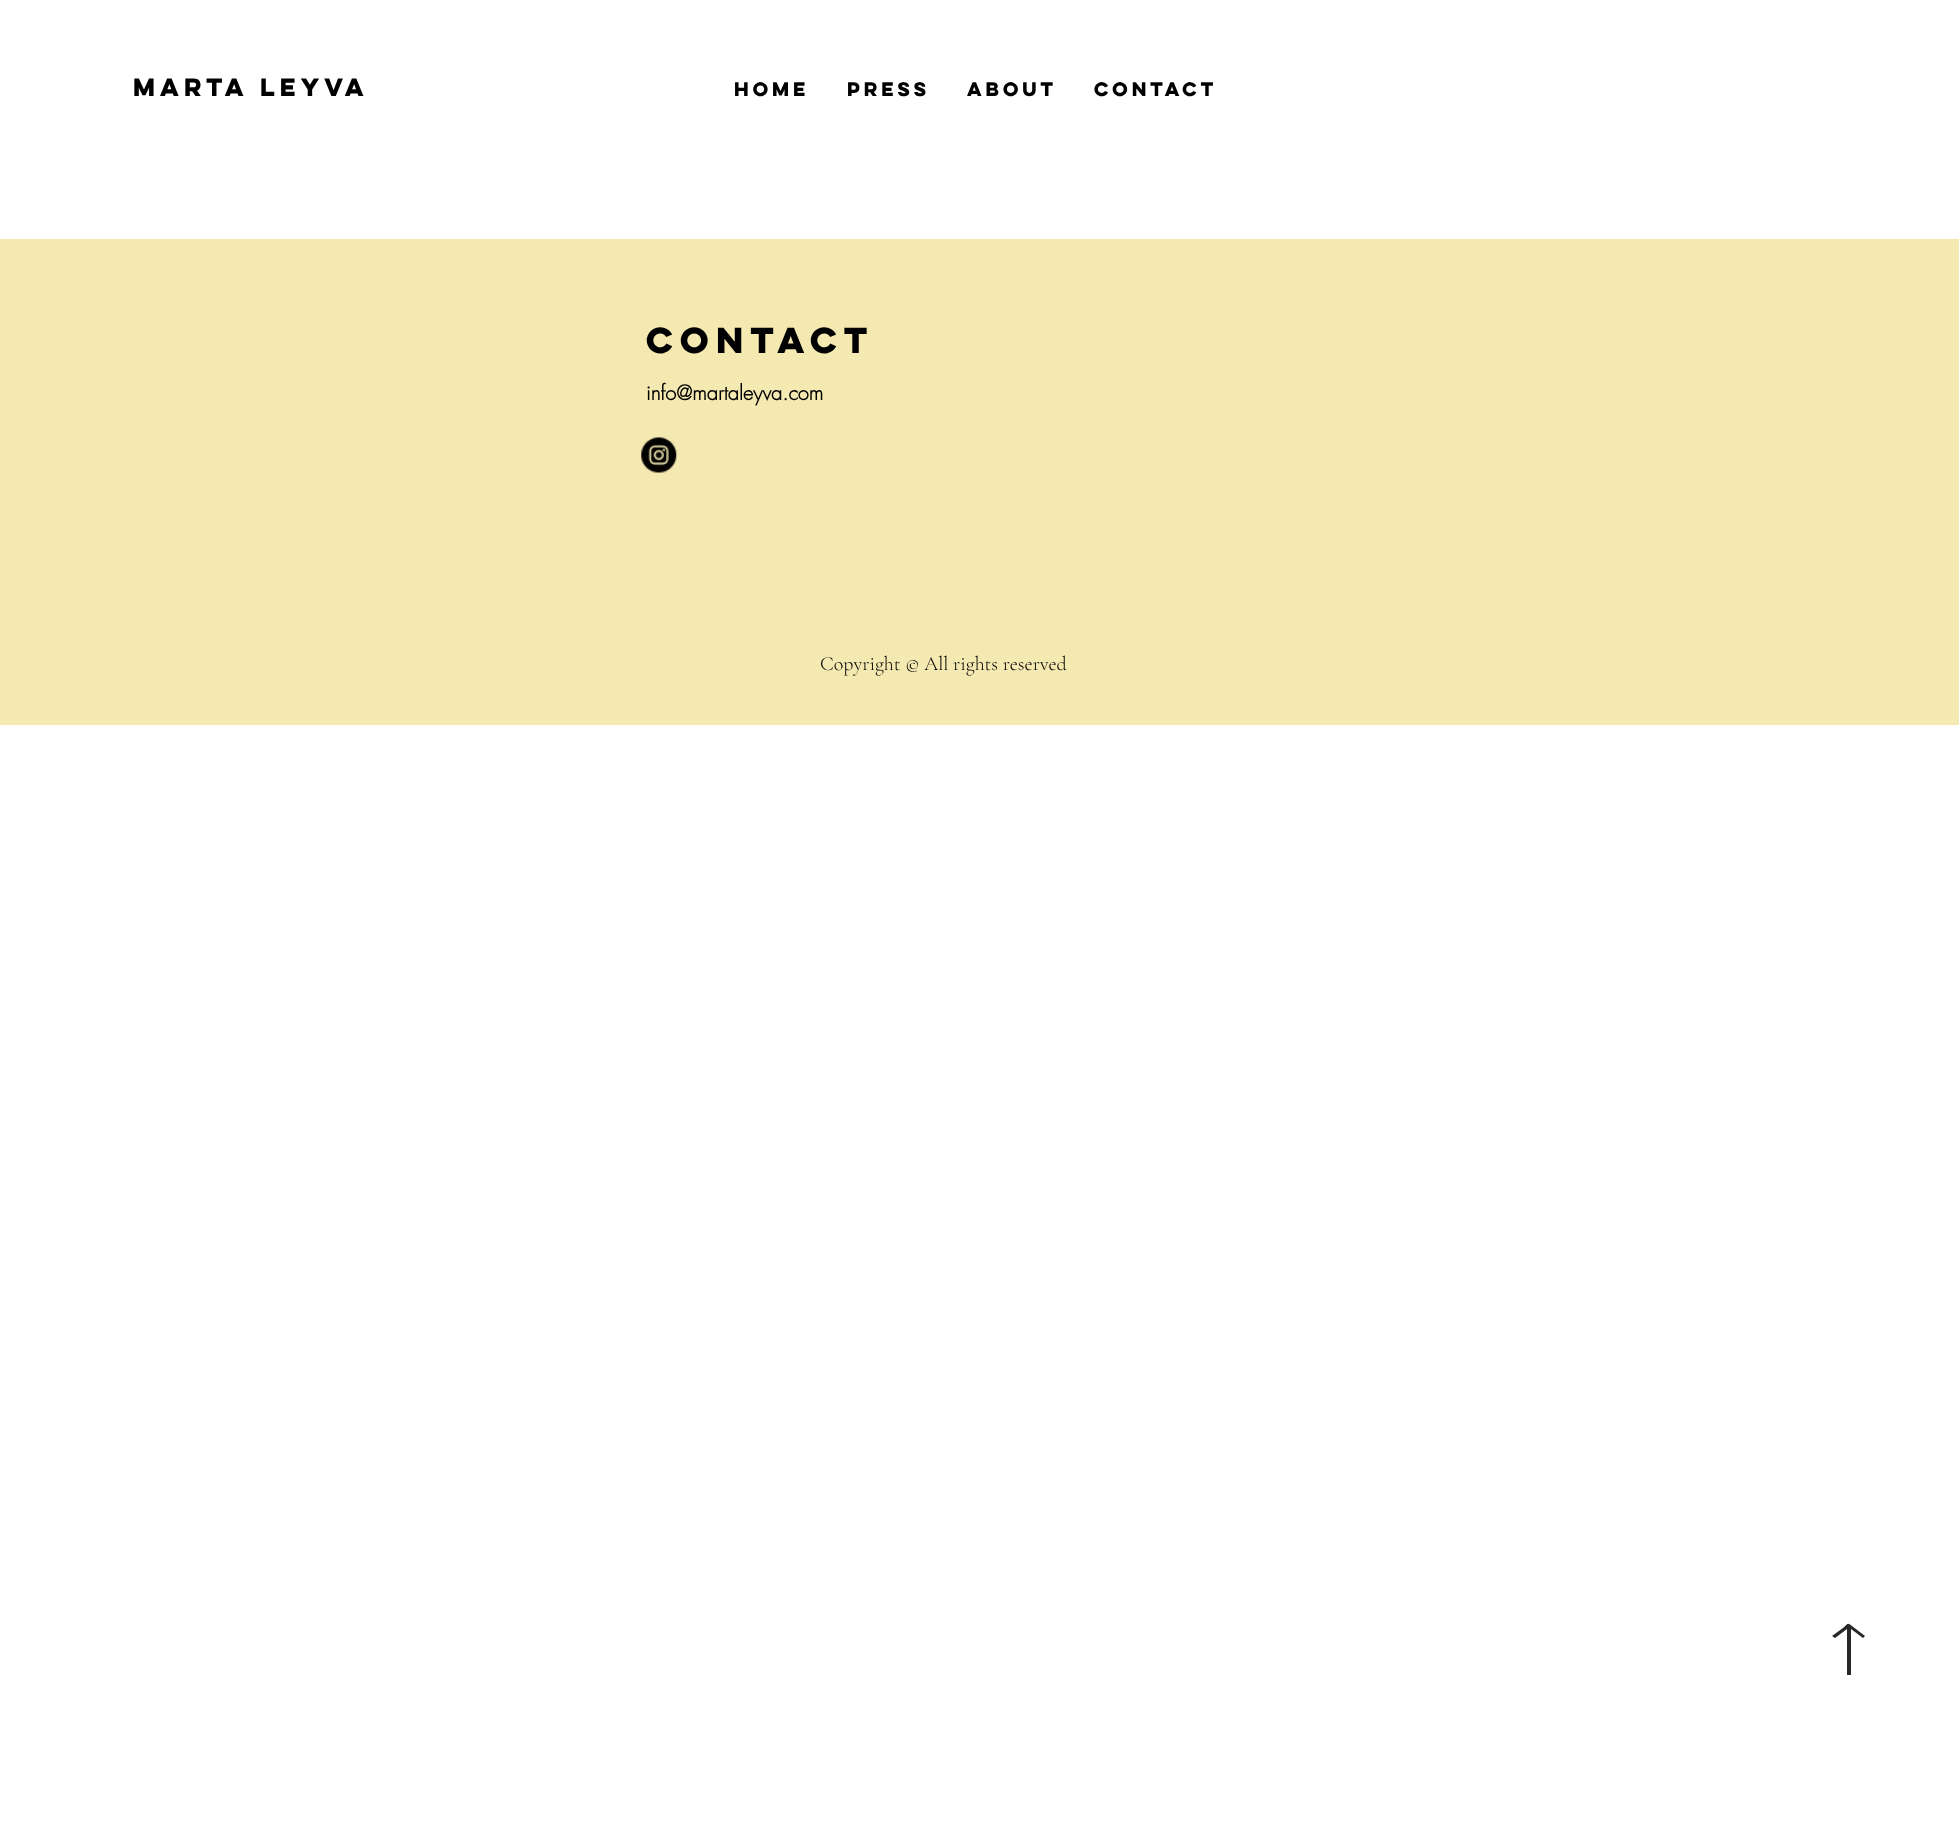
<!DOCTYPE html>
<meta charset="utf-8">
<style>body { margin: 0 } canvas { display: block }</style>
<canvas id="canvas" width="1959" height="1825"></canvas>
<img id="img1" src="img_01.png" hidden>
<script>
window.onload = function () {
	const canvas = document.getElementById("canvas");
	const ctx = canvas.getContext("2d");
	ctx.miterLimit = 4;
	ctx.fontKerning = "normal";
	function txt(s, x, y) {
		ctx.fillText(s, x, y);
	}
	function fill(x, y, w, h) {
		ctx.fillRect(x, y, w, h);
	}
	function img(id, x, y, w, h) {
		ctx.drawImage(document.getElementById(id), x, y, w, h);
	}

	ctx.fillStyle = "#FFFFFF";
	fill(0, 0, 1959, 1825);
	ctx.fillStyle = "#F4EAB1";
	fill(0, 239, 1959, 486);
	img("img1", 641, 437, 36, 36);
	ctx.fillStyle = "#282626";
	ctx.beginPath();
	ctx.moveTo(1865, 1636);
	ctx.lineTo(1852, 1626);
	ctx.bezierCurveTo(1847, 1622, 1848, 1624, 1843, 1628);
	ctx.lineTo(1832, 1636);
	ctx.lineTo(1835, 1638);
	ctx.lineTo(1847, 1629);
	ctx.lineTo(1847, 1675);
	ctx.lineTo(1851, 1675);
	ctx.lineTo(1851, 1629);
	ctx.lineTo(1863, 1638);
	ctx.closePath();
	ctx.fill();
	ctx.font = "bold 22.5px 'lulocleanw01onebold'";
	ctx.fillStyle = "#000000";
	txt("Marta Leyva", 133, 96);
	ctx.font = "bold 17.5px 'lulocleanw01onebold'";
	txt("HOME", 734, 96);
	txt("PRESS", 847, 96);
	txt("ABOUT", 967, 96);
	txt("CONTACT", 1094, 96);
	ctx.font = "bold 32.5px 'lulocleanw01onebold'";
	txt("CONTACT", 646, 353);
	ctx.font = "bold 20px futura";
	txt("info@martaleyva.com", 646, 400);
	ctx.font = "300 20px Cormorant Garamond";
	txt("Copyright © All rights reserved", 820, 670);
};
</script>
